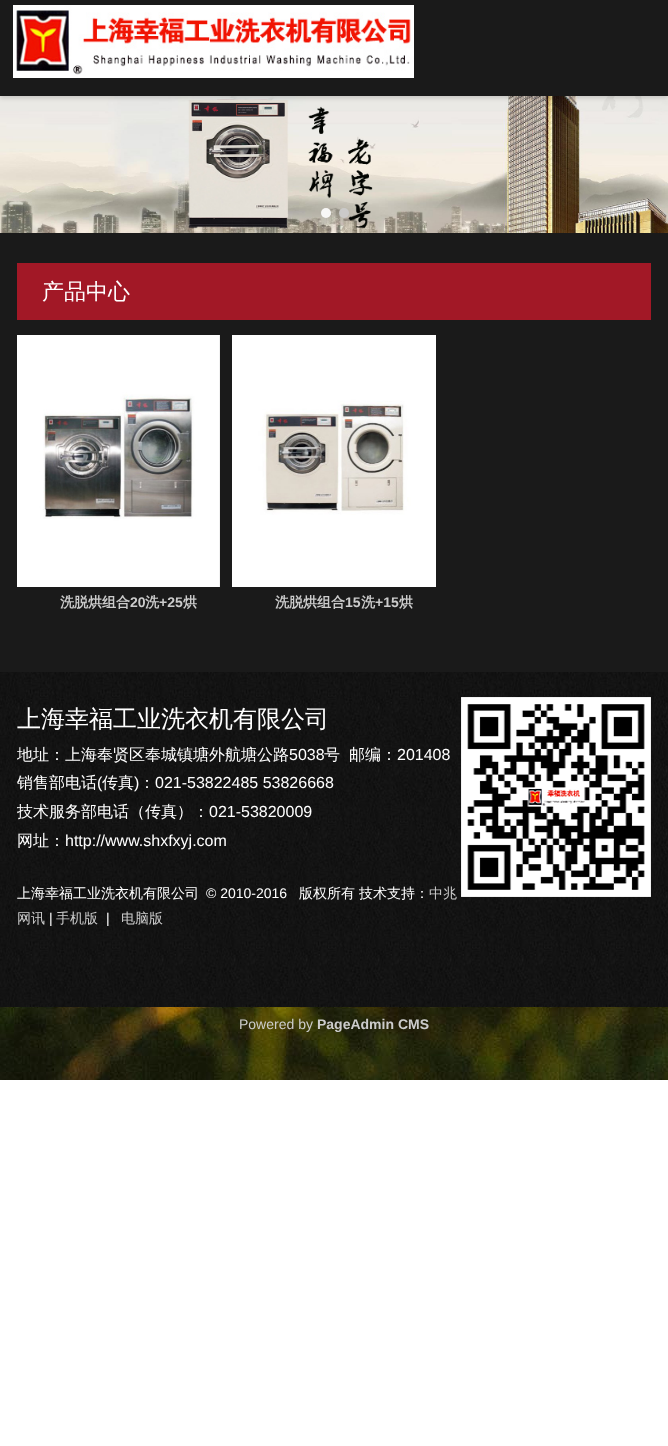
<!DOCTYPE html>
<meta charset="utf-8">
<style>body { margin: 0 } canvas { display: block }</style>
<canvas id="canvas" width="668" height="1446"></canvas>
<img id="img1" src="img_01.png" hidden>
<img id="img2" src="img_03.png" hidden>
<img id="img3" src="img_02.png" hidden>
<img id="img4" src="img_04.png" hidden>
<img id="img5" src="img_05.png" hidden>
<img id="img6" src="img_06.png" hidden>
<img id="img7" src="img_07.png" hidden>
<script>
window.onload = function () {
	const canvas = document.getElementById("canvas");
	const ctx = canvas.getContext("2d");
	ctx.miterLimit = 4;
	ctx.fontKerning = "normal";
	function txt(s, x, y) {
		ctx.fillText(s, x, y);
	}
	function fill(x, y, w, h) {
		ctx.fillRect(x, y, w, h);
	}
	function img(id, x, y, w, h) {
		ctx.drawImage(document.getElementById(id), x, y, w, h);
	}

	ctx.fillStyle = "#FFFFFF";
	fill(0, 0, 668, 1446);
	img("img1", 0, 1007, 668, 73);
	img("img2", 0, 96, 668, 137);
	ctx.fillStyle = "rgba(0, 0, 0, 0.15)";
	ctx.filter = "blur(2px)";
	ctx.beginPath();
	ctx.rect(0, 2, 668, 96);
	ctx.fill();
	ctx.filter = "none";
	ctx.fillStyle = "#1A1A1A";
	fill(0, 0, 668, 96);
	img("img3", 13, 5, 401, 73);
	ctx.fillStyle = "rgba(255, 255, 255, 0.9)";
	ctx.beginPath();
	ctx.arc(326, 213, 5, 0, Math.PI * 2);
	ctx.fill();
	ctx.fillStyle = "rgba(204, 204, 204, 0.9)";
	ctx.beginPath();
	ctx.arc(344, 213, 5, 0, Math.PI * 2);
	ctx.fill();
	ctx.fillStyle = "#1A1A1A";
	fill(0, 233, 668, 439);
	ctx.fillStyle = "#A21826";
	fill(17, 263, 634, 57);
	img("img4", 17, 335, 203, 252);
	img("img5", 232, 335, 204, 252);
	img("img6", 0, 672, 668, 335);
	img("img7", 461, 697, 190, 200);
	ctx.font = "500 22px WenQuanYi Zen Hei";
	ctx.fillStyle = "#FFFFFF";
	txt("产品中心", 42, 299);
	ctx.font = "bold 14px WenQuanYi Zen Hei";
	ctx.fillStyle = "#CCCCCC";
	txt("洗脱烘组合", 60, 607);
	ctx.font = "bold 14px Liberation Sans";
	txt("20", 130, 607);
	ctx.font = "bold 14px WenQuanYi Zen Hei";
	txt("洗", 145, 607);
	ctx.font = "bold 14px Liberation Sans";
	txt("+25", 159, 607);
	ctx.font = "bold 14px WenQuanYi Zen Hei";
	txt("烘", 183, 607);
	txt("洗脱烘组合", 275, 607);
	ctx.font = "bold 14px Liberation Sans";
	txt("15", 345, 607);
	ctx.font = "bold 14px WenQuanYi Zen Hei";
	txt("洗", 361, 607);
	ctx.font = "bold 14px Liberation Sans";
	txt("+15", 375, 607);
	ctx.font = "bold 14px WenQuanYi Zen Hei";
	txt("烘", 399, 607);
	ctx.font = "500 24px WenQuanYi Zen Hei";
	ctx.fillStyle = "#FFFFFF";
	txt("上海幸福工业洗衣机有限公司", 17, 727);
	ctx.font = "500 16px WenQuanYi Zen Hei";
	txt("地址：上海奉贤区奉城镇塘外航塘公路", 17, 760);
	ctx.font = "16px Liberation Sans";
	txt("5038", 289, 760);
	ctx.font = "500 16px WenQuanYi Zen Hei";
	txt("号", 324, 760);
	txt("邮编：", 349, 760);
	ctx.font = "16px Liberation Sans";
	txt("201408", 397, 760);
	ctx.font = "500 16px WenQuanYi Zen Hei";
	txt("销售部电话", 17, 788);
	ctx.font = "16px Liberation Sans";
	txt("(", 97, 788);
	ctx.font = "500 16px WenQuanYi Zen Hei";
	txt("传真", 102, 788);
	ctx.font = "16px Liberation Sans";
	txt(")", 134, 788);
	ctx.font = "500 16px WenQuanYi Zen Hei";
	txt("：", 139, 788);
	ctx.font = "16px Liberation Sans";
	txt("021-53822485 53826668", 155, 788);
	ctx.font = "500 16px WenQuanYi Zen Hei";
	txt("技术服务部电话（传真）：", 17, 817);
	ctx.font = "16px Liberation Sans";
	txt("021-53820009", 209, 817);
	ctx.font = "500 16px WenQuanYi Zen Hei";
	txt("网址：", 17, 846);
	ctx.font = "16px Liberation Sans";
	txt("http://www.shxfxyj.com", 65, 846);
	ctx.font = "500 14px WenQuanYi Zen Hei";
	txt("上海幸福工业洗衣机有限公司", 17, 898);
	ctx.font = "14px Liberation Sans";
	txt("© 2010-2016", 206, 898);
	ctx.font = "500 14px WenQuanYi Zen Hei";
	txt("版权所有", 299, 898);
	txt("技术支持：", 359, 898);
	ctx.fillStyle = "#CCCCCC";
	txt("中兆", 429, 898);
	txt("网讯", 17, 923);
	ctx.font = "14px Liberation Sans";
	ctx.fillStyle = "#FFFFFF";
	txt("|", 49, 923);
	ctx.font = "500 14px WenQuanYi Zen Hei";
	ctx.fillStyle = "#CCCCCC";
	txt("手机版", 56, 923);
	ctx.font = "14px Liberation Sans";
	ctx.fillStyle = "#FFFFFF";
	txt("|", 106, 923);
	ctx.font = "500 14px WenQuanYi Zen Hei";
	ctx.fillStyle = "#CCCCCC";
	txt("电脑版", 121, 923);
	ctx.font = "14px Liberation Sans";
	txt("Powered by", 239, 1029);
	ctx.font = "bold 14px Liberation Sans";
	txt("PageAdmin CMS", 317, 1029);
};
</script>
